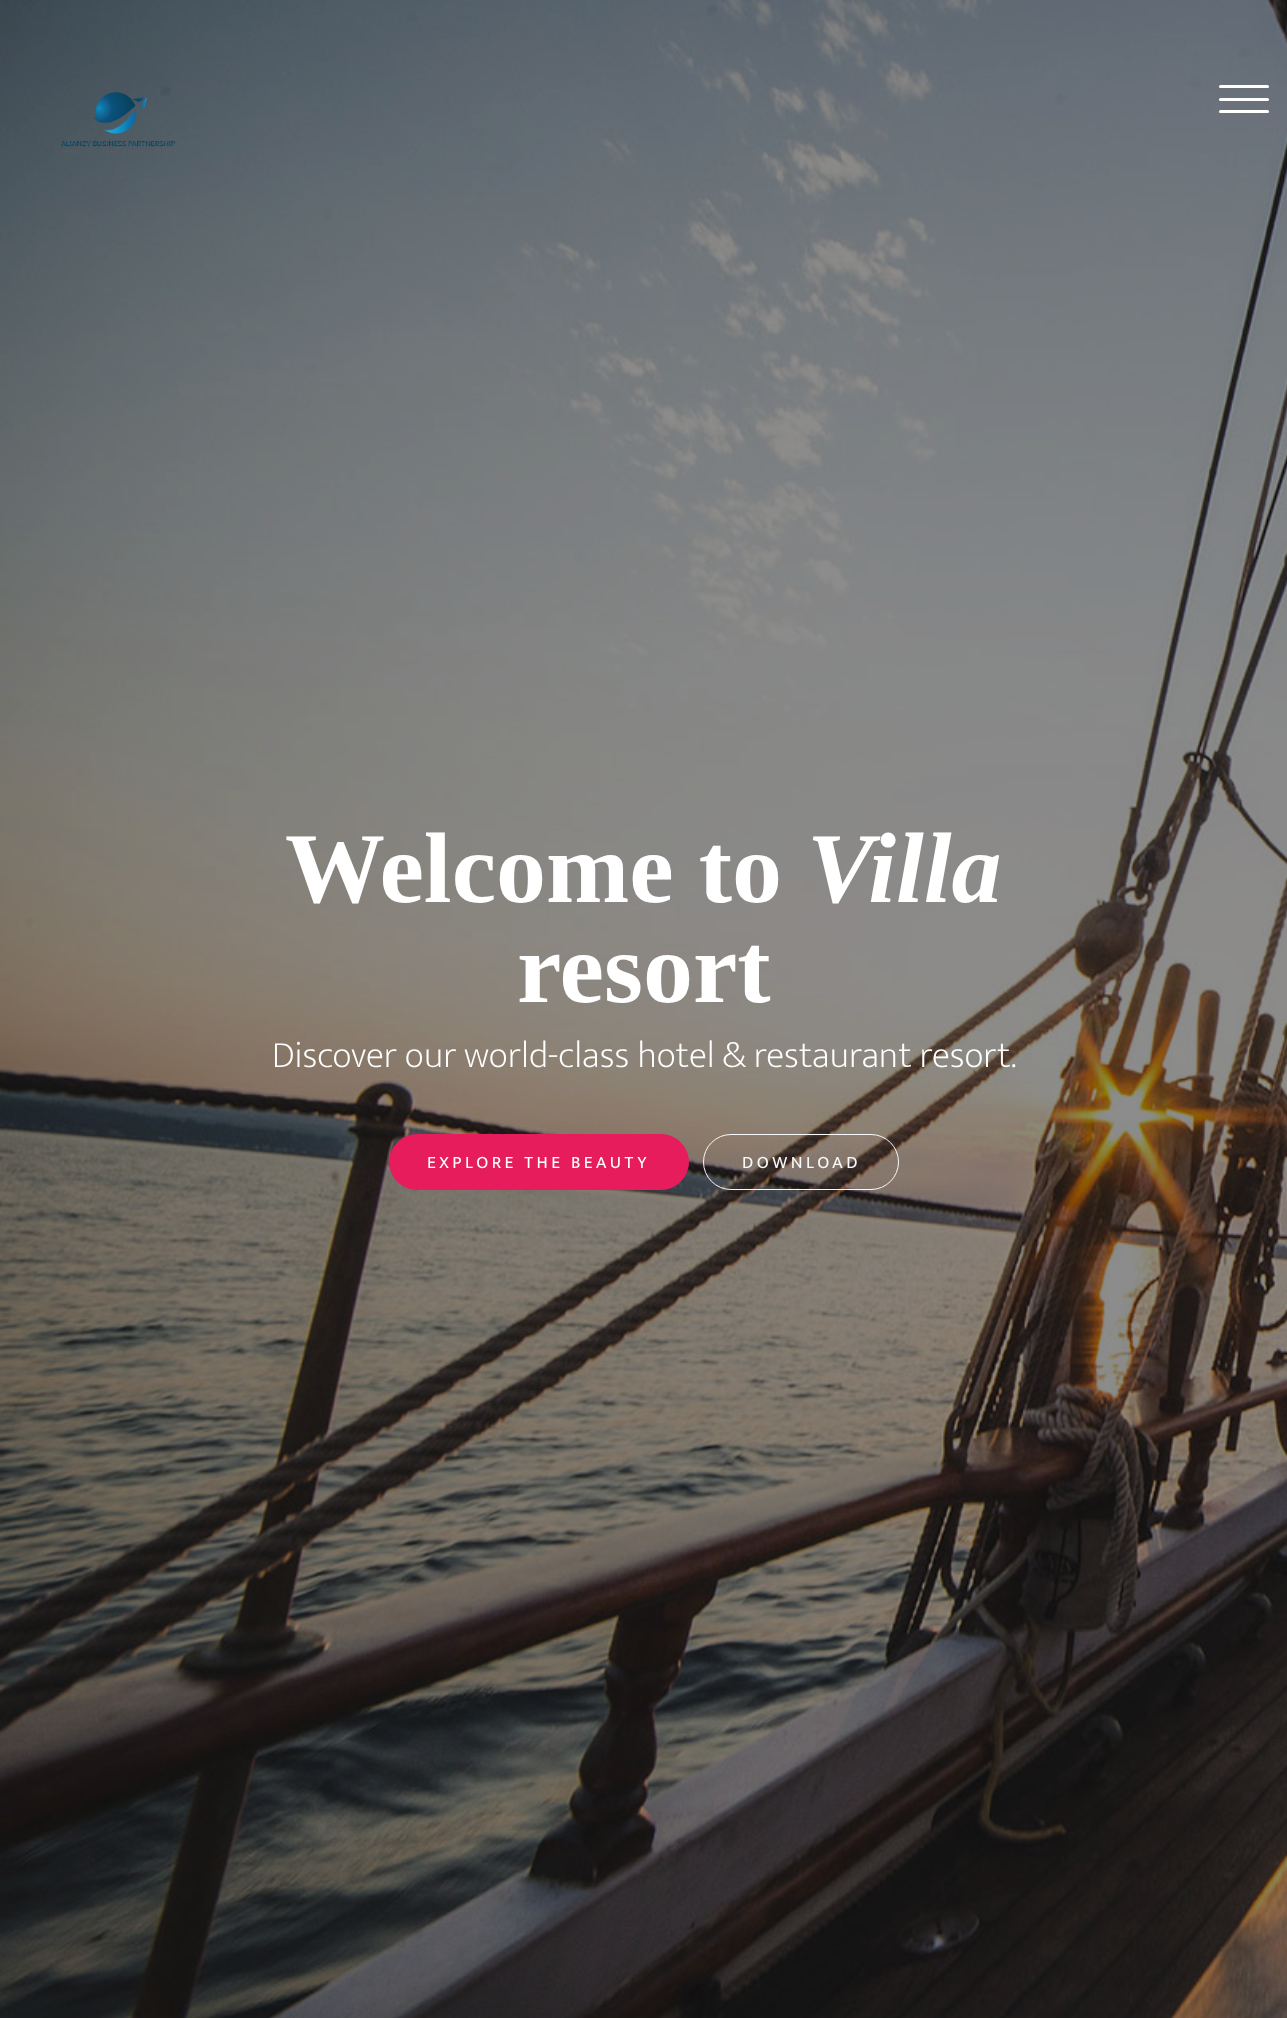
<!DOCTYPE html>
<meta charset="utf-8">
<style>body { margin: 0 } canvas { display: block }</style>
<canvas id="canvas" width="1287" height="2018"></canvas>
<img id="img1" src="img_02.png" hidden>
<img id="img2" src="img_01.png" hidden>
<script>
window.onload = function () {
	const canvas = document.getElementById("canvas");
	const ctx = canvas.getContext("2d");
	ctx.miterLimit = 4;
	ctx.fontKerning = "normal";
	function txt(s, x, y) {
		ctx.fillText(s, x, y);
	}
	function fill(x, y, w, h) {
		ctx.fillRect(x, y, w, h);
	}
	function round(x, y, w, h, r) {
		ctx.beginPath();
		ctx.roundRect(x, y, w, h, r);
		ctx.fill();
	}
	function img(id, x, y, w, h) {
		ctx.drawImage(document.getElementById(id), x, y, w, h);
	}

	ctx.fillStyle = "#FFFFFF";
	fill(0, 0, 1287, 2018);
	img("img1", 0, 0, 1287, 2018);
	img("img2", 55, 92, 122, 62);
	round(1219, 85, 50, 3, 1.5);
	round(1219, 98, 50, 3, 1.5);
	round(1219, 110, 50, 3, 1.5);
	ctx.fillStyle = "#E61C5D";
	ctx.beginPath();
	ctx.roundRect(389.5, 1134.5, 299, 55, 27.5);
	ctx.fill();
	ctx.strokeStyle = "#E61C5D";
	ctx.stroke();
	ctx.beginPath();
	ctx.roundRect(703.5, 1134.5, 195, 55, 27.5);
	ctx.strokeStyle = "#F8F9FA";
	ctx.stroke();
	ctx.font = "bold 100px Liberation Serif";
	ctx.fillStyle = "#FFFFFF";
	txt("Welcome to", 285, 902);
	ctx.font = "italic bold 100px Liberation Serif";
	txt("Villa", 807, 902);
	ctx.font = "bold 100px Liberation Serif";
	txt("resort", 517, 1002);
	ctx.font = "200 37.5px Mukta Mahee";
	txt("Discover our world-class hotel & restaurant resort.", 272, 1067);
	ctx.letterSpacing = "3.5px";
	ctx.font = "17.5px Mukta Mahee";
	txt("EXPLORE THE BEAUTY", 427, 1168);
	ctx.fillStyle = "#F8F9FA";
	txt("DOWNLOAD", 742, 1168);
};
</script>
